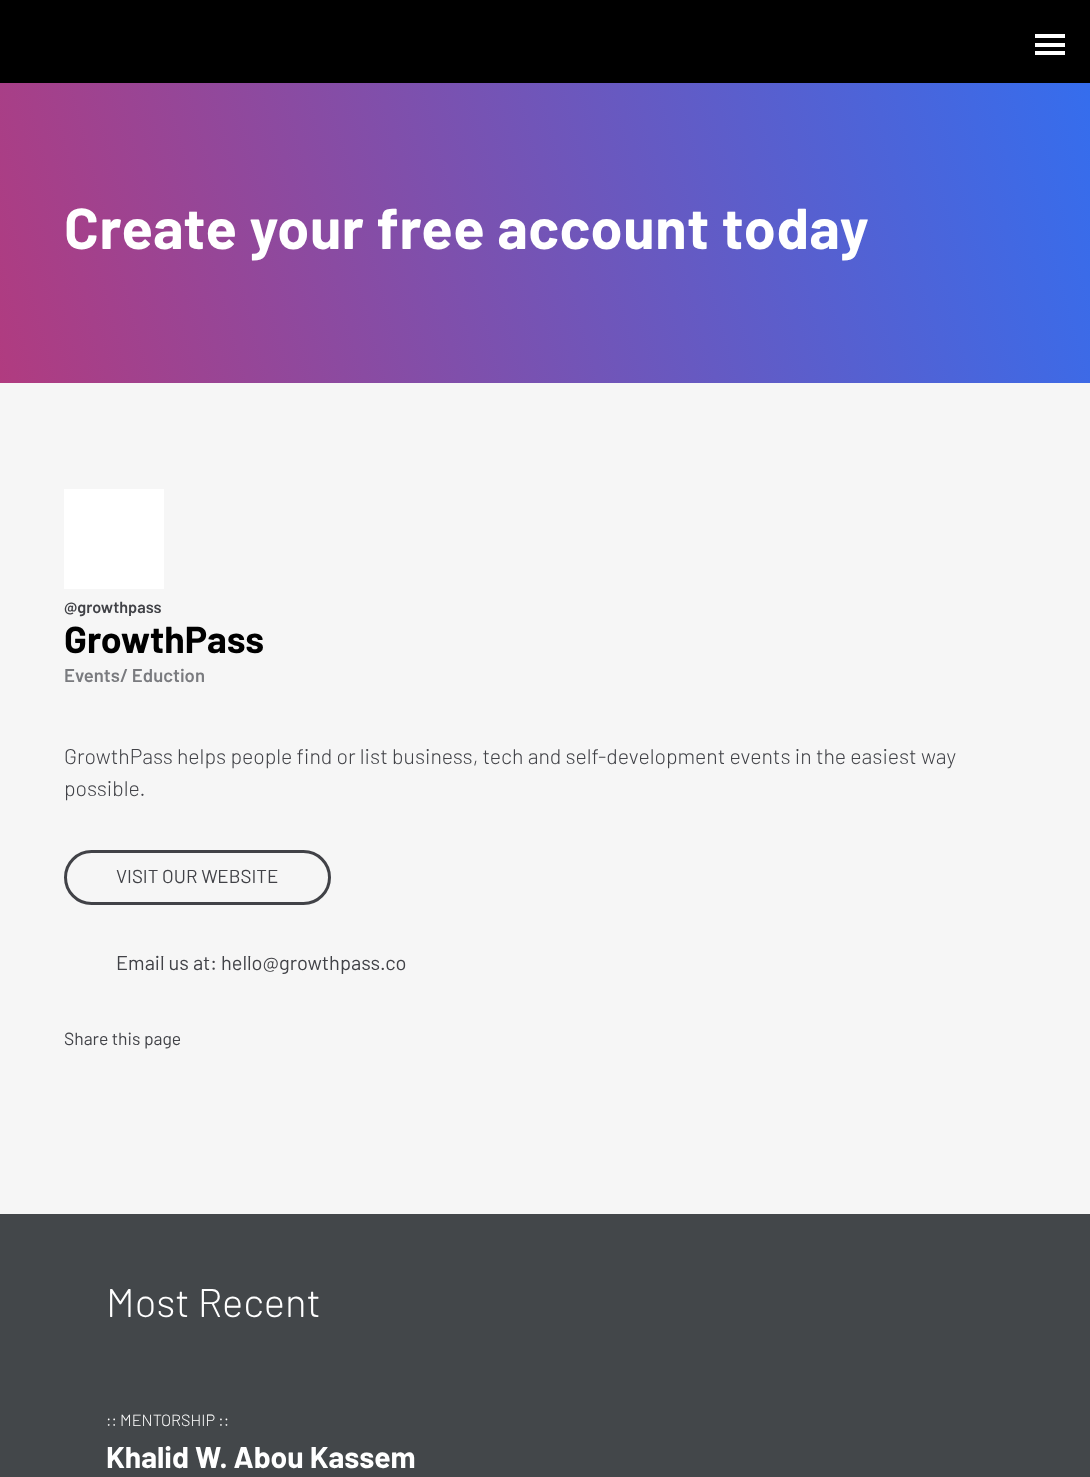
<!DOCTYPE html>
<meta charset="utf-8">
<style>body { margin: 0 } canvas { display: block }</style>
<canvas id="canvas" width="1090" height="1477"></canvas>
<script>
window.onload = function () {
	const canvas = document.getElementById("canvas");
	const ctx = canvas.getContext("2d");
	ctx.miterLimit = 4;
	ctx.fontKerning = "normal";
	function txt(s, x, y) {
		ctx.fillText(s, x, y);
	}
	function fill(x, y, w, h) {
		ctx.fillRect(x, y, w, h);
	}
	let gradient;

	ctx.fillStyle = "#F6F6F6";
	fill(0, 0, 1090, 1477);
	ctx.fillStyle = "#000000";
	fill(0, 0, 1090, 83);
	ctx.fillStyle = "#FFFFFF";
	fill(1035, 34, 30, 4);
	fill(1035, 43, 30, 4);
	fill(1035, 51, 30, 4);
	gradient = ctx.createLinearGradient(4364, 97, -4, 1268);
	gradient.addColorStop(0, "#23A6D5");
	gradient.addColorStop(0.33, "#23D5AB");
	gradient.addColorStop(0.67, "#2773FA");
	gradient.addColorStop(1, "#CA3169");
	ctx.fillStyle = gradient;
	fill(0, 83, 1090, 300);
	ctx.fillStyle = "#FFFFFF";
	fill(64, 489, 100, 100);
	ctx.beginPath();
	ctx.roundRect(65.5, 851.5, 264, 52, 26);
	ctx.strokeStyle = "#414247";
	ctx.lineWidth = 3;
	ctx.stroke();
	ctx.fillStyle = "#43474A";
	fill(0, 1214, 1090, 263);
	ctx.letterSpacing = "0.6px";
	ctx.font = "bold 57.5px Barlow";
	ctx.fillStyle = "#FFFFFF";
	txt("Create your free account today", 64, 249);
	ctx.letterSpacing = "0px";
	ctx.font = "600 16.25px Barlow";
	ctx.fillStyle = "#414247";
	txt("@growthpass", 64, 613);
	ctx.font = "bold 37.5px Barlow";
	ctx.fillStyle = "#000000";
	txt("GrowthPass", 64, 653);
	ctx.font = "600 18.5px Barlow";
	ctx.fillStyle = "#7A7B7F";
	txt("Events/ Eduction", 64, 682);
	ctx.font = "300 21.25px Barlow";
	ctx.fillStyle = "#414247";
	txt("GrowthPass helps people find or list business, tech and self-development events in the easiest way", 64, 764);
	txt("possible.", 64, 796);
	ctx.font = "18.75px Barlow";
	txt("VISIT OUR WEBSITE", 116, 883);
	ctx.font = "20px Barlow";
	txt("Email us at: hello@growthpass.co", 116, 970);
	ctx.font = "17.5px Barlow";
	txt("Share this page", 64, 1045);
	ctx.font = "300 40px Barlow";
	ctx.fillStyle = "#FFFFFF";
	txt("Most Recent", 106, 1317);
	ctx.font = "300 16.25px Barlow";
	txt(":: MENTORSHIP ::", 106, 1426);
	ctx.font = "bold 30px Barlow";
	txt("Khalid W. Abou Kassem", 106, 1468);
};
</script>
